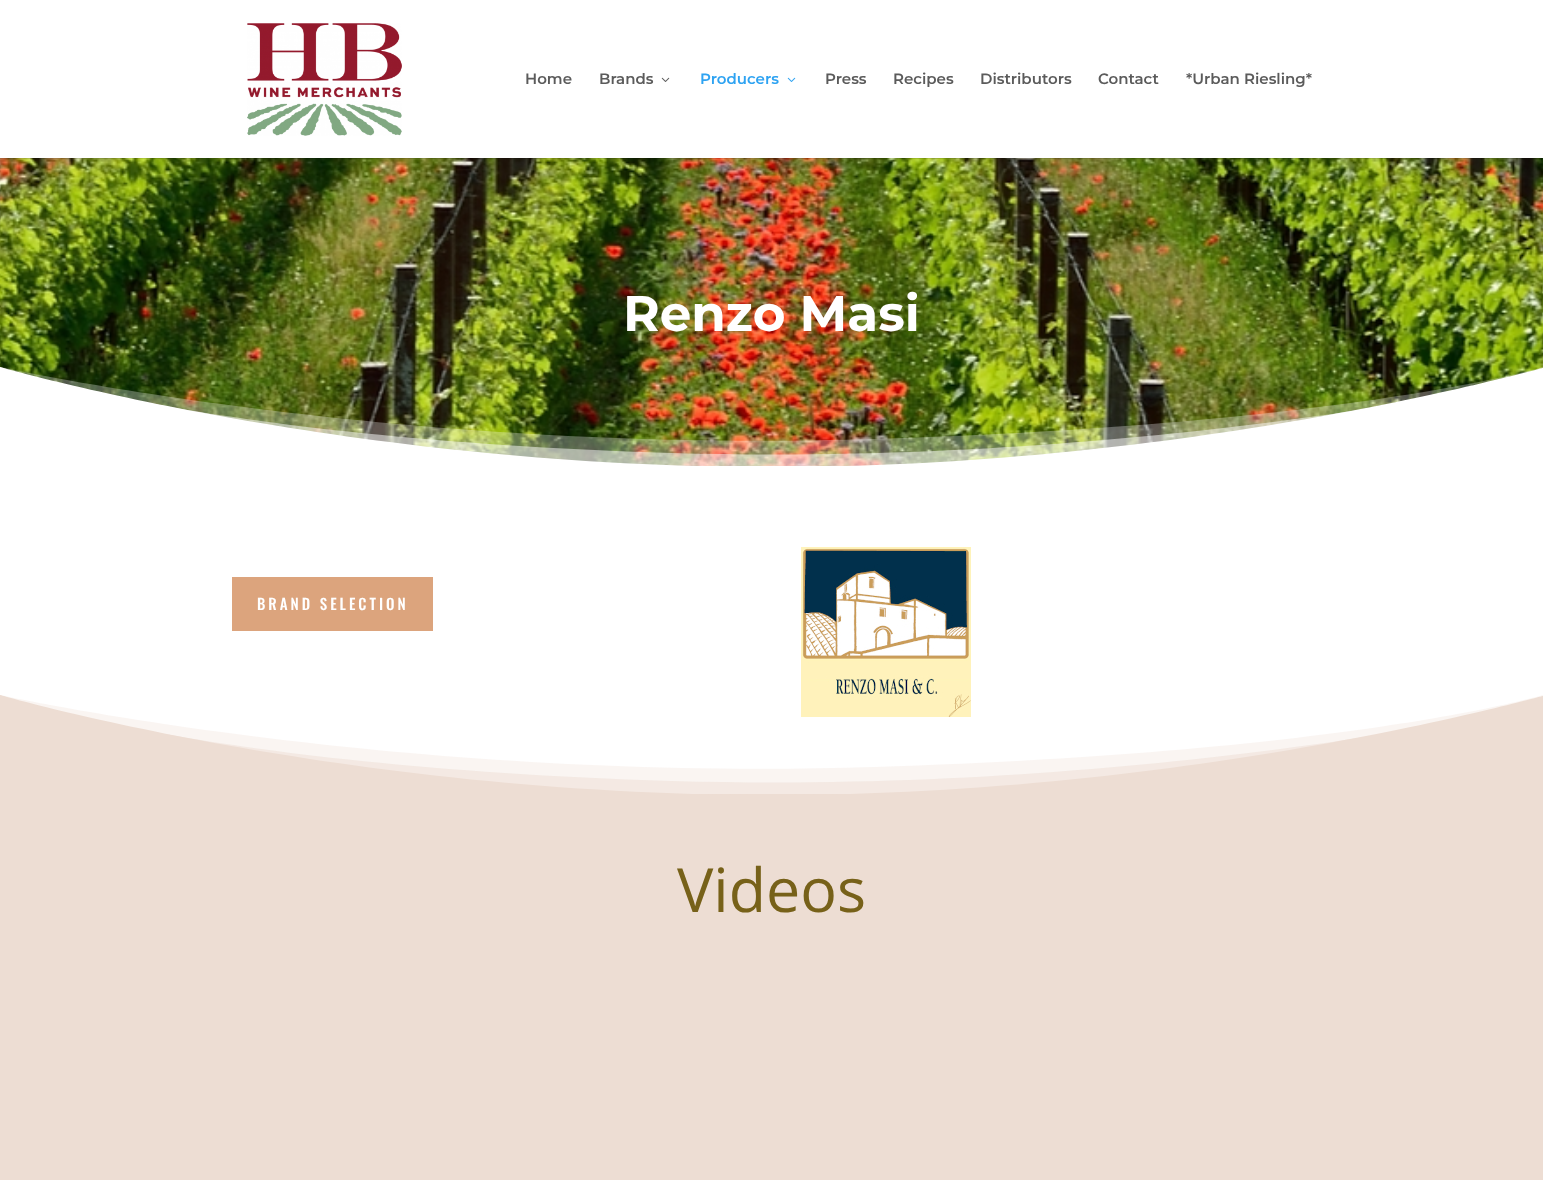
<!DOCTYPE html>
<meta charset="utf-8">
<style>body { margin: 0 } canvas { display: block }</style>
<canvas id="canvas" width="1543" height="1180"></canvas>
<img id="img1" src="img_04.png" hidden>
<img id="img2" src="img_01.png" hidden>
<img id="img3" src="img_02.png" hidden>
<img id="img4" src="img_03.png" hidden>
<img id="img5" src="img_05.png" hidden>
<script>
window.onload = function () {
	const canvas = document.getElementById("canvas");
	const ctx = canvas.getContext("2d");
	ctx.miterLimit = 4;
	ctx.fontKerning = "normal";
	function txt(s, x, y) {
		ctx.fillText(s, x, y);
	}
	function fill(x, y, w, h) {
		ctx.fillRect(x, y, w, h);
	}
	function img(id, x, y, w, h) {
		ctx.drawImage(document.getElementById(id), x, y, w, h);
	}

	ctx.fillStyle = "#FFFFFF";
	fill(0, 0, 1543, 1180);
	img("img1", 0, 158, 1543, 308);
	ctx.fillStyle = "rgba(0, 0, 0, 0.1)";
	fill(0, 158, 1543, 1);
	img("img2", 247, 23, 155, 113);
	img("img3", 661, 77, 9, 5);
	img("img4", 787, 77, 9, 5);
	ctx.save();
	ctx.beginPath();
	ctx.rect(0, 367, 1543, 99);
	ctx.clip();
	ctx.fillStyle = "rgba(255, 255, 255, 0.3)";
	ctx.beginPath();
	ctx.moveTo(874, 439);
	ctx.bezierCurveTo(392, 454, 0, 367, 0, 367);
	ctx.lineTo(0, 467);
	ctx.lineTo(1543, 467);
	ctx.lineTo(1543, 367);
	ctx.bezierCurveTo(1543, 367, 1357, 424, 874, 439);
	ctx.closePath();
	ctx.fill();
	ctx.fillStyle = "rgba(255, 255, 255, 0.5)";
	ctx.beginPath();
	ctx.moveTo(671, 453);
	ctx.bezierCurveTo(1149, 467, 1543, 377, 1543, 377);
	ctx.lineTo(1543, 467);
	ctx.lineTo(0, 467);
	ctx.lineTo(0, 367);
	ctx.bezierCurveTo(0, 367, 192, 438, 671, 453);
	ctx.closePath();
	ctx.fill();
	ctx.fillStyle = "#FFFFFF";
	ctx.beginPath();
	ctx.moveTo(772, 467);
	ctx.bezierCurveTo(1198, 467, 1543, 367, 1543, 368);
	ctx.lineTo(1543, 468);
	ctx.lineTo(0, 468);
	ctx.lineTo(0, 367);
	ctx.bezierCurveTo(0, 367, 345, 467, 772, 467);
	ctx.closePath();
	ctx.fill();
	ctx.restore();
	ctx.fillStyle = "#DCA47D";
	fill(232, 577, 201, 54);
	ctx.fillStyle = "#EDDDD3";
	fill(0, 794, 1543, 386);
	ctx.fillStyle = "rgba(237, 221, 211, 0.3)";
	ctx.beginPath();
	ctx.moveTo(874, 767);
	ctx.bezierCurveTo(392, 782, 0, 695, 0, 695);
	ctx.lineTo(0, 795);
	ctx.lineTo(1543, 795);
	ctx.lineTo(1543, 695);
	ctx.bezierCurveTo(1543, 695, 1357, 752, 874, 767);
	ctx.closePath();
	ctx.fill();
	ctx.fillStyle = "rgba(237, 221, 211, 0.5)";
	ctx.beginPath();
	ctx.moveTo(671, 781);
	ctx.bezierCurveTo(1149, 795, 1543, 705, 1543, 705);
	ctx.lineTo(1543, 795);
	ctx.lineTo(0, 795);
	ctx.lineTo(0, 695);
	ctx.bezierCurveTo(0, 695, 192, 766, 671, 781);
	ctx.closePath();
	ctx.fill();
	ctx.save();
	ctx.beginPath();
	ctx.rect(0, 695, 1543, 100);
	ctx.clip();
	ctx.fillStyle = "#EDDDD3";
	ctx.beginPath();
	ctx.moveTo(772, 795);
	ctx.bezierCurveTo(1198, 795, 1543, 695, 1543, 696);
	ctx.lineTo(1543, 796);
	ctx.lineTo(0, 796);
	ctx.lineTo(0, 695);
	ctx.bezierCurveTo(0, 695, 345, 795, 772, 795);
	ctx.closePath();
	ctx.fill();
	ctx.restore();
	img("img5", 801, 547, 170, 170);
	ctx.font = "600 15px Montserrat";
	ctx.fillStyle = "#5B5B5B";
	txt("Home", 525, 84);
	txt("Brands", 599, 84);
	ctx.fillStyle = "#2EA3F2";
	txt("Producers", 700, 84);
	ctx.fillStyle = "#5B5B5B";
	txt("Press", 825, 84);
	txt("Recipes", 893, 84);
	txt("Distributors", 980, 84);
	txt("Contact", 1098, 84);
	txt("*Urban Riesling*", 1186, 84);
	ctx.font = "bold 50px Montserrat";
	ctx.fillStyle = "#FFFFFF";
	txt("Renzo Masi", 623, 331);
	ctx.letterSpacing = "3px";
	ctx.font = "500 15px Oswald";
	txt("BRAND SELECTION", 257, 610);
	ctx.letterSpacing = "0px";
	ctx.font = "61px Open Sans";
	ctx.fillStyle = "#776119";
	txt("Videos", 677, 912);
};
</script>
